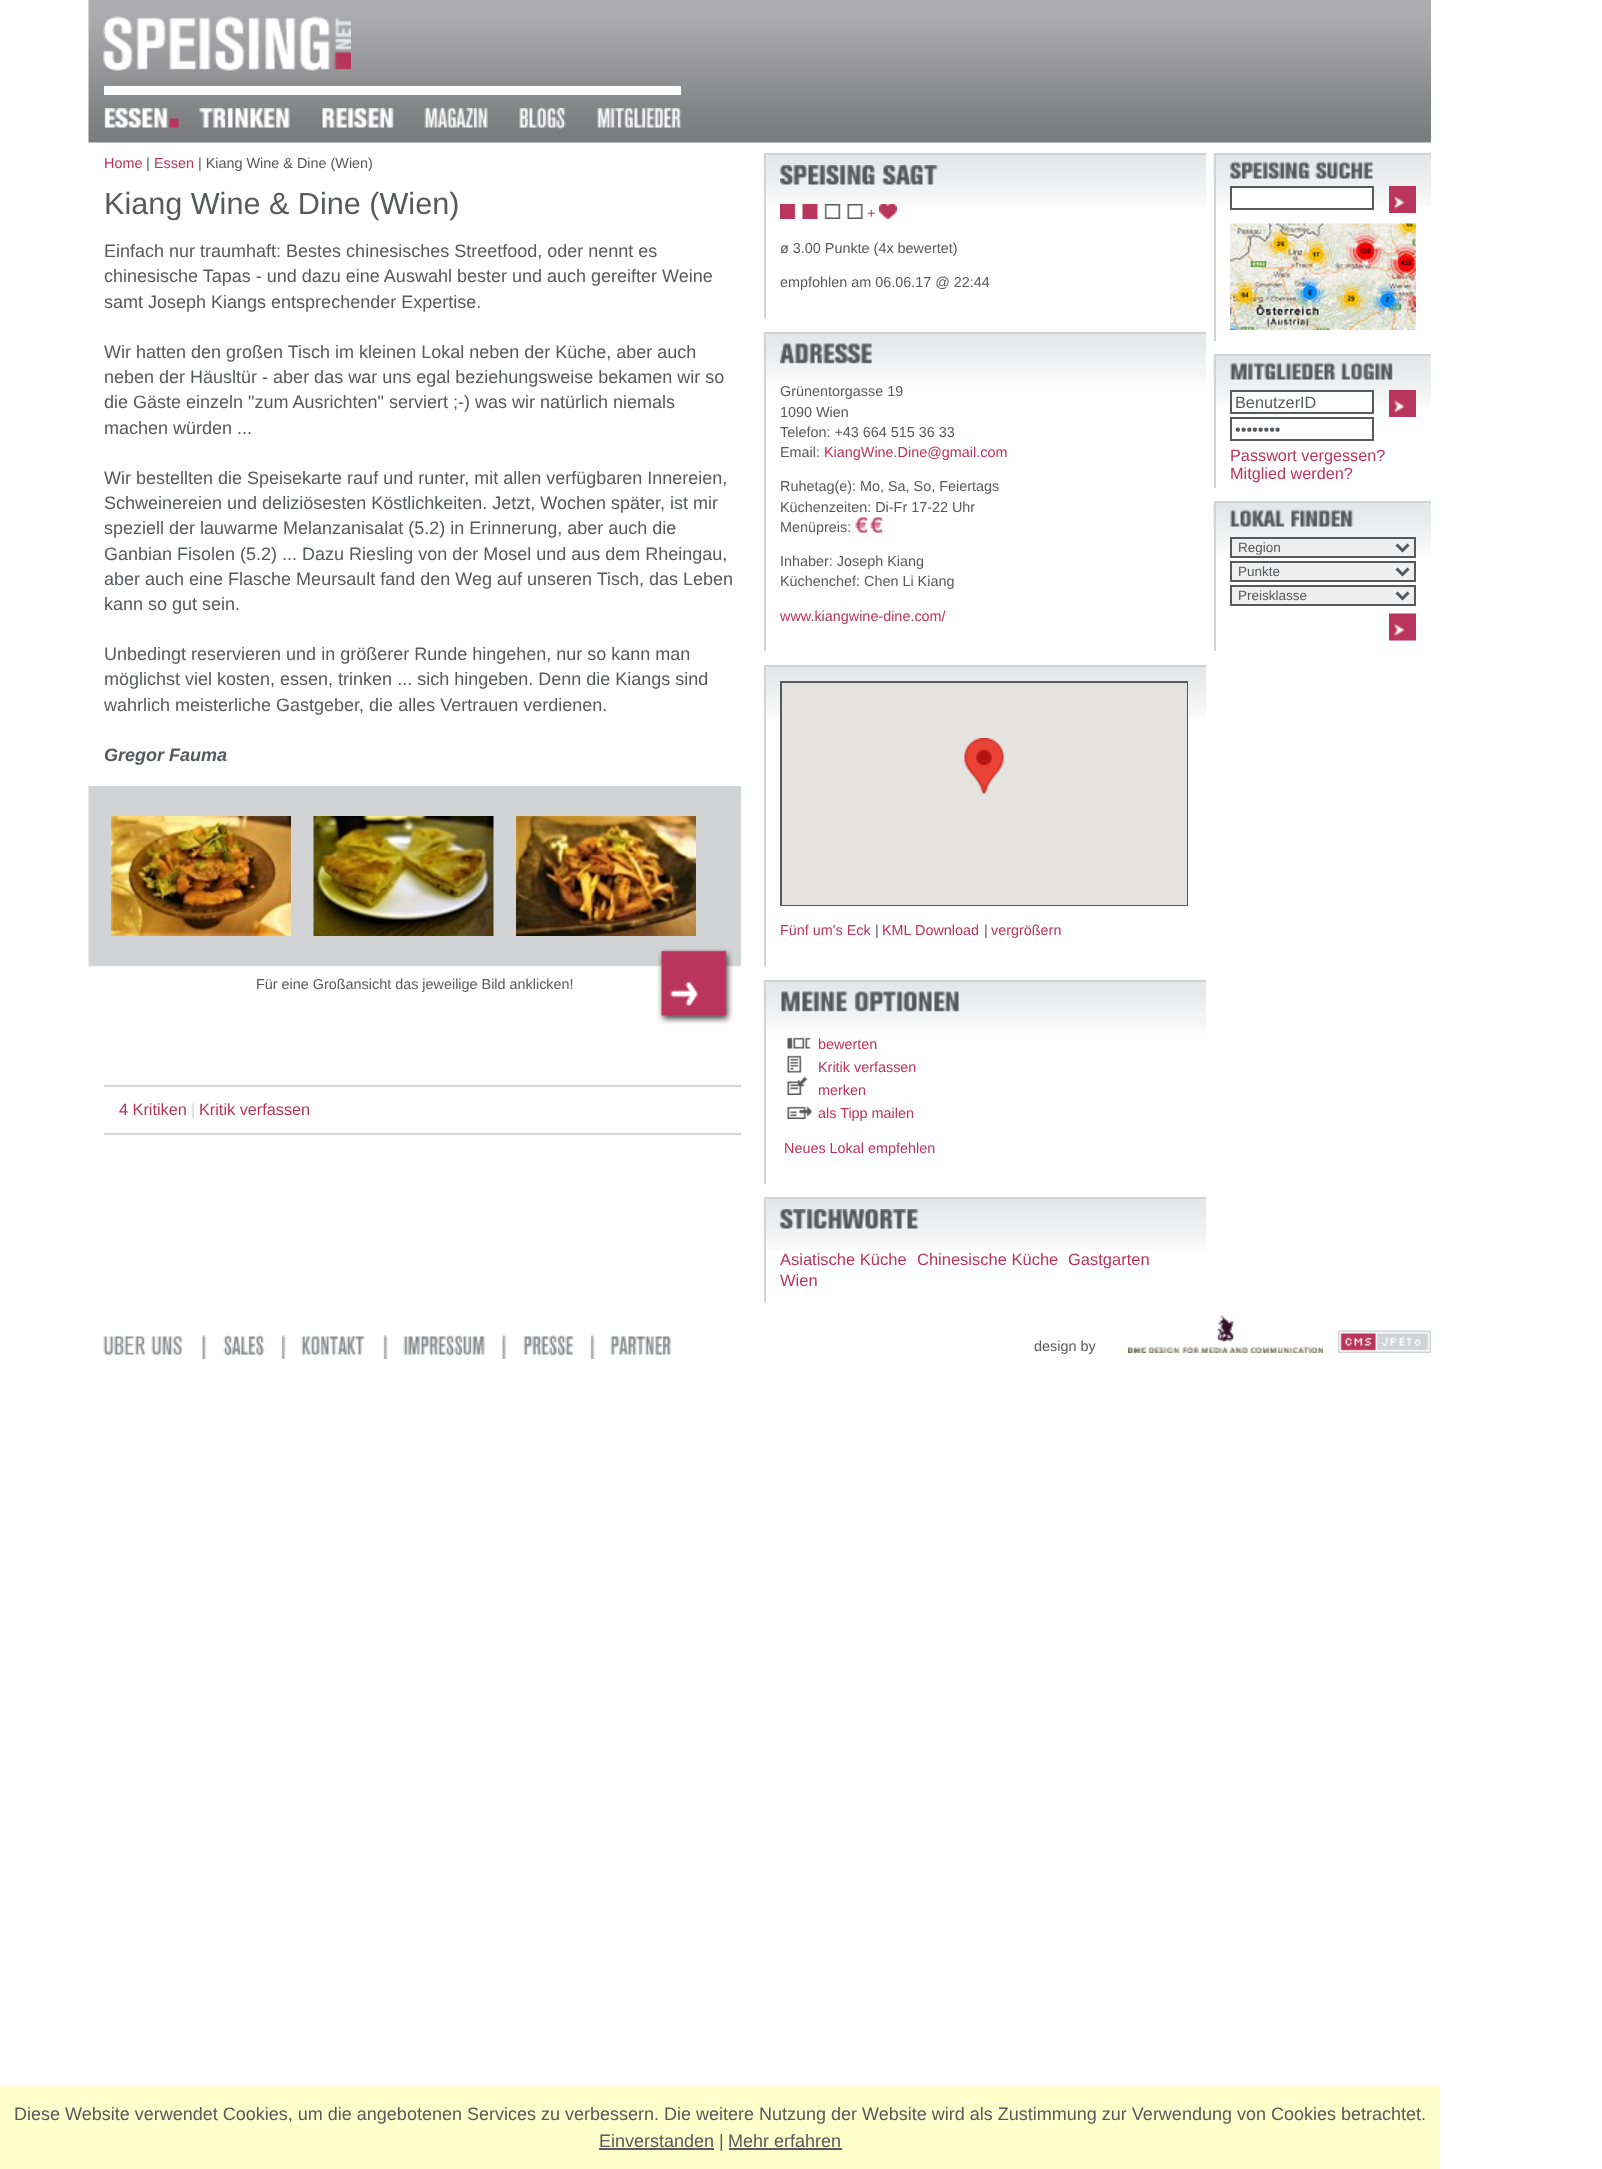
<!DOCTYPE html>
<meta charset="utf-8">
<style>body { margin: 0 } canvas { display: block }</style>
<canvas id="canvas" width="1602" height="2169"></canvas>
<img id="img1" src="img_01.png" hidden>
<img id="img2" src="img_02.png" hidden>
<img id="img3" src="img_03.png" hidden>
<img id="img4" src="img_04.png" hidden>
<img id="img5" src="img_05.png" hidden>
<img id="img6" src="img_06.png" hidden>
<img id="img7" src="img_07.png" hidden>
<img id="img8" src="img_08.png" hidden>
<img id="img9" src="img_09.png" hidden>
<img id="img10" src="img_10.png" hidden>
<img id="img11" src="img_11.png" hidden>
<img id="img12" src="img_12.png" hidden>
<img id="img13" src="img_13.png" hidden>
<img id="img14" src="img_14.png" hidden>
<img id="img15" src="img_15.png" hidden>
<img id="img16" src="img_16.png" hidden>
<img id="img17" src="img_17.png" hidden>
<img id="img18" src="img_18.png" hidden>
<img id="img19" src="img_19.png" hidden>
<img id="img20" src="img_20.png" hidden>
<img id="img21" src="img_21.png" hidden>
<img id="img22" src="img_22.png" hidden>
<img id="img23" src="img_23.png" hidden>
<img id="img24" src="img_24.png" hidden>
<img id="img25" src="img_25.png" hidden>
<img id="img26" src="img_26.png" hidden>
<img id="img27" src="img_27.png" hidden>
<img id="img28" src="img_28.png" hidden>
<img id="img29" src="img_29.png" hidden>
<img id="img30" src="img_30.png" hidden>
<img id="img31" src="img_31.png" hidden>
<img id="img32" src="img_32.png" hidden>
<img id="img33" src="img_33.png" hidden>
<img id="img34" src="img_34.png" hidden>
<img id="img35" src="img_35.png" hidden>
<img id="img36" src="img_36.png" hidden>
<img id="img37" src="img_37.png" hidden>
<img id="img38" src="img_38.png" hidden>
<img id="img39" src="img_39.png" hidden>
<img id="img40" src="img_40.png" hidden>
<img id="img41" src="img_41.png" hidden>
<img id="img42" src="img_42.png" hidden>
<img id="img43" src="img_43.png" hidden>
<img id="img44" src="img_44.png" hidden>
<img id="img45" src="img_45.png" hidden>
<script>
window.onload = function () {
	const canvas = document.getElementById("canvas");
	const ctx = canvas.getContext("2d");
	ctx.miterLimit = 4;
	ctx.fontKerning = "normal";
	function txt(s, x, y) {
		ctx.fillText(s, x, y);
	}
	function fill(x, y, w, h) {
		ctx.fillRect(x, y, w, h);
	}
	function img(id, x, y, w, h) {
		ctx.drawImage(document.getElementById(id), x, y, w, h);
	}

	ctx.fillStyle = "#FFFFFF";
	fill(0, 0, 1602, 2169);
	img("img1", 88, 0, 1343, 143);
	fill(104, 86, 577, 9);
	img("img2", 103, 16, 248, 55);
	img("img3", 104, 108, 75, 20);
	img("img4", 199, 108, 91, 20);
	img("img5", 322, 108, 72, 20);
	img("img6", 424, 108, 64, 20);
	img("img7", 519, 108, 47, 21);
	img("img8", 597, 108, 85, 20);
	img("img9", 88, 786, 653, 181);
	img("img10", 111, 816, 180, 120);
	img("img11", 313, 816, 181, 120);
	img("img12", 516, 816, 180, 120);
	img("img13", 657, 948, 76, 77);
	ctx.fillStyle = "#D2D3D5";
	fill(104, 1085, 637, 2);
	fill(104, 1133, 637, 2);
	img("img14", 763, 154, 443, 52);
	fill(764, 153, 442, 2);
	fill(764, 153, 2, 165);
	img("img15", 780, 165, 158, 20);
	img("img16", 780, 204, 83, 15);
	img("img17", 879, 204, 18, 15);
	img("img18", 763, 333, 443, 52);
	fill(764, 332, 442, 2);
	fill(764, 332, 2, 319);
	img("img19", 780, 343, 92, 21);
	img("img20", 855, 517, 28, 16);
	img("img18", 763, 666, 443, 52);
	fill(764, 665, 442, 2);
	fill(764, 665, 2, 301);
	ctx.strokeStyle = "#58595B";
	ctx.lineWidth = 2;
	ctx.strokeRect(781, 682, 406, 223);
	ctx.fillStyle = "#E5E3DF";
	fill(782, 683, 405, 222);
	img("img21", 964, 738, 40, 56);
	img("img18", 763, 981, 443, 52);
	ctx.fillStyle = "#D2D3D5";
	fill(764, 980, 442, 2);
	fill(764, 980, 2, 204);
	img("img22", 781, 991, 178, 21);
	img("img23", 787, 1037, 24, 12);
	img("img24", 787, 1055, 15, 18);
	img("img25", 787, 1077, 21, 18);
	img("img26", 787, 1106, 25, 13);
	img("img14", 763, 1198, 443, 52);
	fill(764, 1197, 442, 2);
	fill(764, 1197, 2, 105);
	img("img27", 780, 1209, 139, 20);
	img("img28", 1213, 154, 218, 52);
	fill(1214, 153, 217, 2);
	fill(1214, 153, 2, 188);
	img("img29", 1230, 161, 143, 18);
	ctx.fillStyle = "#FFFFFF";
	fill(1232, 188, 140, 18);
	ctx.strokeRect(1231, 187, 142, 22);
	img("img30", 1389, 186, 27, 27);
	img("img31", 1230, 223, 186, 107);
	img("img28", 1213, 355, 218, 52);
	ctx.fillStyle = "#D2D3D5";
	fill(1214, 354, 217, 2);
	fill(1214, 354, 2, 134);
	img("img32", 1230, 362, 163, 18);
	ctx.fillStyle = "#FFFFFF";
	fill(1232, 392, 140, 15);
	ctx.strokeRect(1231, 391, 142, 22);
	ctx.strokeRect(1231, 418, 142, 22);
	img("img30", 1389, 390, 27, 27);
	img("img28", 1213, 502, 218, 52);
	ctx.fillStyle = "#D2D3D5";
	fill(1214, 501, 217, 2);
	fill(1214, 501, 2, 150);
	img("img33", 1230, 509, 124, 18);
	ctx.fillStyle = "#EFEFEF";
	ctx.beginPath();
	ctx.rect(1231, 538, 184, 19);
	ctx.fill();
	ctx.stroke();
	ctx.beginPath();
	ctx.moveTo(1396.5, 544.5);
	ctx.lineTo(1402.5, 550.5);
	ctx.lineTo(1408.5, 544.5);
	ctx.lineWidth = 3;
	ctx.stroke();
	ctx.beginPath();
	ctx.rect(1231, 562, 184, 19);
	ctx.fill();
	ctx.lineWidth = 2;
	ctx.stroke();
	ctx.beginPath();
	ctx.moveTo(1396.5, 568.5);
	ctx.lineTo(1402.5, 574.5);
	ctx.lineTo(1408.5, 568.5);
	ctx.lineWidth = 3;
	ctx.stroke();
	ctx.beginPath();
	ctx.rect(1231, 586, 184, 19);
	ctx.fill();
	ctx.lineWidth = 2;
	ctx.stroke();
	ctx.beginPath();
	ctx.moveTo(1396.5, 592.5);
	ctx.lineTo(1402.5, 598.5);
	ctx.lineTo(1408.5, 592.5);
	ctx.lineWidth = 3;
	ctx.stroke();
	img("img34", 1389, 613, 27, 28);
	img("img35", 103, 1336, 80, 19);
	img("img36", 202, 1334, 4, 25);
	img("img37", 223, 1335, 42, 22);
	img("img38", 281, 1334, 5, 25);
	img("img39", 301, 1336, 64, 19);
	img("img38", 383, 1334, 5, 25);
	img("img40", 403, 1335, 82, 22);
	img("img41", 502, 1334, 4, 25);
	img("img42", 523, 1335, 51, 22);
	img("img38", 590, 1334, 5, 25);
	img("img43", 610, 1336, 61, 19);
	img("img44", 1128, 1315, 195, 38);
	img("img45", 1338, 1330, 93, 23);
	ctx.fillStyle = "#FFFFCC";
	fill(0, 2085, 1440, 84);
	ctx.fillStyle = "#5A5A5A";
	fill(599, 2148, 115, 2);
	fill(729, 2148, 113, 2);
	ctx.font = "14.4px Liberation Sans";
	ctx.fillStyle = "#B9355D";
	txt("Home", 104, 168);
	ctx.fillStyle = "#58595B";
	txt("|", 146, 168);
	ctx.fillStyle = "#B9355D";
	txt("Essen", 154, 168);
	ctx.fillStyle = "#58595B";
	txt("| Kiang Wine & Dine (Wien)", 198, 168);
	ctx.font = "30.6px Liberation Sans";
	txt("Kiang Wine & Dine (Wien)", 104, 214);
	ctx.font = "18px Liberation Sans";
	txt("Einfach nur traumhaft: Bestes chinesisches Streetfood, oder nennt es", 104, 257);
	txt("chinesische Tapas - und dazu eine Auswahl bester und auch gereifter Weine", 104, 282);
	txt("samt Joseph Kiangs entsprechender Expertise.", 104, 308);
	txt("Wir hatten den großen Tisch im kleinen Lokal neben der Küche, aber auch", 104, 358);
	txt("neben der Häusltür - aber das war uns egal beziehungsweise bekamen wir so", 104, 383);
	txt("die Gäste einzeln \"zum Ausrichten\" serviert ;-) was wir natürlich niemals", 104, 408);
	txt("machen würden ...", 104, 434);
	txt("Wir bestellten die Speisekarte rauf und runter, mit allen verfügbaren Innereien,", 104, 484);
	txt("Schweinereien und deliziösesten Köstlichkeiten. Jetzt, Wochen später, ist mir", 104, 509);
	txt("speziell der lauwarme Melanzanisalat (5.2) in Erinnerung, aber auch die", 104, 534);
	txt("Ganbian Fisolen (5.2) ... Dazu Riesling von der Mosel und aus dem Rheingau,", 104, 560);
	txt("aber auch eine Flasche Meursault fand den Weg auf unseren Tisch, das Leben", 104, 585);
	txt("kann so gut sein.", 104, 610);
	txt("Unbedingt reservieren und in größerer Runde hingehen, nur so kann man", 104, 660);
	txt("möglichst viel kosten, essen, trinken ... sich hingeben. Denn die Kiangs sind", 104, 685);
	txt("wahrlich meisterliche Gastgeber, die alles Vertrauen verdienen.", 104, 711);
	ctx.font = "italic bold 18px Liberation Sans";
	txt("Gregor Fauma", 104, 761);
	ctx.font = "14.4px Liberation Sans";
	txt("Für eine Großansicht das jeweilige Bild anklicken!", 256, 989);
	ctx.font = "16.25px Liberation Sans";
	ctx.fillStyle = "#B9355D";
	txt("4 Kritiken", 119, 1115);
	ctx.fillStyle = "#D2D3D5";
	txt("|", 191, 1115);
	ctx.fillStyle = "#B9355D";
	txt("Kritik verfassen", 199, 1115);
	ctx.font = "14.4px Liberation Sans";
	txt("+", 867, 218);
	ctx.fillStyle = "#58595B";
	txt("ø 3.00 Punkte (4x bewertet)", 780, 253);
	txt("empfohlen am 06.06.17 @ 22:44", 780, 287);
	txt("Grünentorgasse 19", 780, 396);
	txt("1090 Wien", 780, 417);
	txt("Telefon: +43 664 515 36 33", 780, 437);
	txt("Email:", 780, 457);
	ctx.fillStyle = "#B9355D";
	txt("KiangWine.Dine@gmail.com", 824, 457);
	ctx.fillStyle = "#58595B";
	txt("Ruhetag(e): Mo, Sa, So, Feiertags", 780, 491);
	txt("Küchenzeiten: Di-Fr 17-22 Uhr", 780, 512);
	txt("Menüpreis:", 780, 532);
	txt("Inhaber: Joseph Kiang", 780, 566);
	txt("Küchenchef: Chen Li Kiang", 780, 586);
	ctx.fillStyle = "#B9355D";
	txt("www.kiangwine-dine.com/", 780, 621);
	txt("Fünf um's Eck", 780, 935);
	ctx.fillStyle = "#58595B";
	txt("|", 875, 935);
	ctx.fillStyle = "#B9355D";
	txt("KML Download", 882, 935);
	ctx.fillStyle = "#58595B";
	txt("|", 984, 935);
	ctx.fillStyle = "#B9355D";
	txt("vergrößern", 991, 935);
	txt("bewerten", 818, 1049);
	txt("Kritik verfassen", 818, 1072);
	txt("merken", 818, 1095);
	txt("als Tipp mailen", 818, 1118);
	txt("Neues Lokal empfehlen", 784, 1153);
	ctx.font = "16.5px Liberation Sans";
	txt("Asiatische Küche", 780, 1265);
	txt("Chinesische Küche", 917, 1265);
	txt("Gastgarten", 1068, 1265);
	txt("Wien", 780, 1286);
	ctx.font = "16.25px Liberation Sans";
	ctx.fillStyle = "#58595B";
	txt("BenutzerID", 1235, 408);
	txt("••••••••", 1235, 435);
	ctx.fillStyle = "#B9355D";
	txt("Passwort vergessen?", 1230, 461);
	txt("Mitglied werden?", 1230, 479);
	ctx.font = "13.5px Liberation Sans";
	ctx.fillStyle = "#58595B";
	txt("Region", 1238, 552);
	txt("Punkte", 1238, 576);
	txt("Preisklasse", 1238, 600);
	ctx.font = "14.4px Liberation Sans";
	txt("design by", 1034, 1351);
	ctx.font = "18px Liberation Sans";
	txt("Diese Website verwendet Cookies, um die angebotenen Services zu verbessern. Die weitere Nutzung der Website wird als Zustimmung zur Verwendung von Cookies betrachtet.", 14, 2120);
	txt("Einverstanden", 599, 2147);
	txt("|", 719, 2147);
	txt("Mehr erfahren", 728, 2147);
};
</script>
